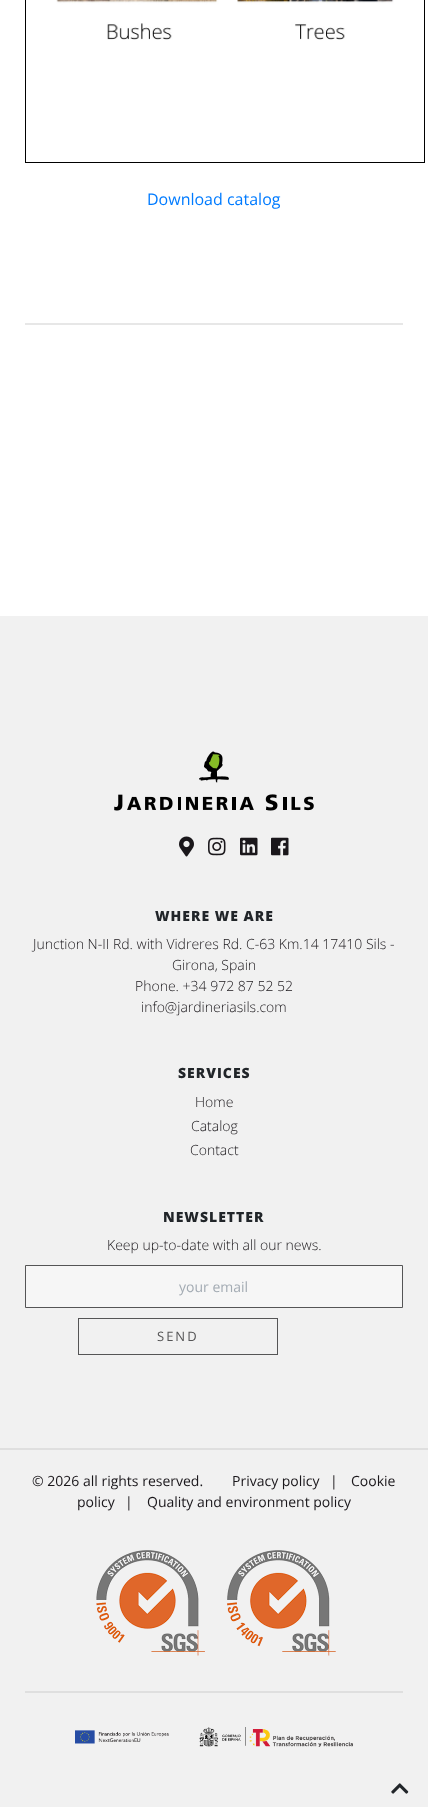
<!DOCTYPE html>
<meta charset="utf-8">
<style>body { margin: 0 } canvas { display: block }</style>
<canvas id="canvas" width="428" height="1807"></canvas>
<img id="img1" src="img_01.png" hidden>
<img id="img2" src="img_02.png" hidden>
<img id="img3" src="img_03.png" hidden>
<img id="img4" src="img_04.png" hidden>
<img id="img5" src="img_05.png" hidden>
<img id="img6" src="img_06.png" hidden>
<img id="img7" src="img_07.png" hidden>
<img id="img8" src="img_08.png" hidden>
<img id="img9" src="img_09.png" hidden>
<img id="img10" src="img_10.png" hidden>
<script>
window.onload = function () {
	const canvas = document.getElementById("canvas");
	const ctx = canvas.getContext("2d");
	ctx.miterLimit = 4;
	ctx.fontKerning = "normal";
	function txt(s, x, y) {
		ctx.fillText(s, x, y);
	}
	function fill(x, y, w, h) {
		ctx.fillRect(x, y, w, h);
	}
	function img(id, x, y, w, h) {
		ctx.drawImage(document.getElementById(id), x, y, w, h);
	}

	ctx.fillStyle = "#FFFFFF";
	fill(0, 0, 428, 1807);
	ctx.strokeStyle = "#000000";
	ctx.strokeRect(25.5, -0.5, 399, 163);
	img("img1", 56, 0, 338, 40);
	ctx.fillStyle = "#E7E7E7";
	fill(25, 323, 378, 2);
	ctx.fillStyle = "#F1F1F1";
	fill(0, 616, 428, 1191);
	ctx.fillStyle = "#DFDFDF";
	fill(0, 1448, 428, 2);
	img("img2", 114, 751, 200, 60);
	img("img3", 179, 836, 15, 21);
	img("img4", 208, 837, 18, 19);
	img("img5", 240, 837, 18, 19);
	img("img6", 271, 837, 18, 19);
	ctx.fillStyle = "#F6F6F6";
	ctx.beginPath();
	ctx.rect(25.5, 1265.5, 377, 42);
	ctx.fill();
	ctx.strokeStyle = "#555556";
	ctx.stroke();
	ctx.strokeRect(78.5, 1318.5, 199, 36);
	img("img7", 96, 1550, 109, 106);
	img("img8", 226, 1550, 110, 106);
	ctx.fillStyle = "#DFDFDF";
	fill(25, 1691, 378, 2);
	img("img9", 75, 1727, 278, 20);
	img("img10", 391, 1783, 18, 11);
	ctx.font = "16px Open Sans";
	ctx.fillStyle = "#007BFF";
	txt("Download catalog", 147, 205);
	ctx.letterSpacing = "1px";
	ctx.font = "800 14px Open Sans";
	ctx.fillStyle = "#212529";
	txt("WHERE WE ARE", 155, 921);
	ctx.letterSpacing = "0px";
	ctx.font = "300 14px Open Sans";
	ctx.fillStyle = "#1A171B";
	txt("Junction N-II Rd. with Vidreres Rd. C-63 Km.14 17410 Sils -", 33, 949);
	txt("Girona, Spain", 172, 970);
	txt("Phone. +34 972 87 52 52", 135, 991);
	txt("info@jardineriasils.com", 141, 1012);
	ctx.letterSpacing = "1px";
	ctx.font = "800 14px Open Sans";
	ctx.fillStyle = "#212529";
	txt("SERVICES", 178, 1078);
	ctx.letterSpacing = "0px";
	ctx.font = "300 14px Open Sans";
	ctx.fillStyle = "#1A171B";
	txt("Home", 195, 1107);
	txt("Catalog", 191, 1131);
	txt("Contact", 190, 1155);
	ctx.letterSpacing = "1px";
	ctx.font = "800 14px Open Sans";
	ctx.fillStyle = "#212529";
	txt("NEWSLETTER", 163, 1222);
	ctx.letterSpacing = "0px";
	ctx.font = "300 14px Open Sans";
	ctx.fillStyle = "#1A171B";
	txt("Keep up-to-date with all our news.", 107, 1250);
	ctx.font = "14px Open Sans";
	ctx.fillStyle = "#A3ABB3";
	txt("your email", 179, 1292);
	ctx.letterSpacing = "2px";
	ctx.font = "13px Open Sans";
	ctx.fillStyle = "#555556";
	txt("SEND", 157, 1341);
	ctx.letterSpacing = "0px";
	ctx.font = "14px Open Sans";
	ctx.fillStyle = "#1A171B";
	txt("© 2026 all rights reserved.", 32, 1486);
	txt("Privacy policy", 232, 1486);
	txt("|", 330, 1486);
	txt("Cookie", 351, 1486);
	txt("policy", 77, 1507);
	txt("|", 125, 1507);
	txt("Quality and environment policy", 147, 1507);
};
</script>
